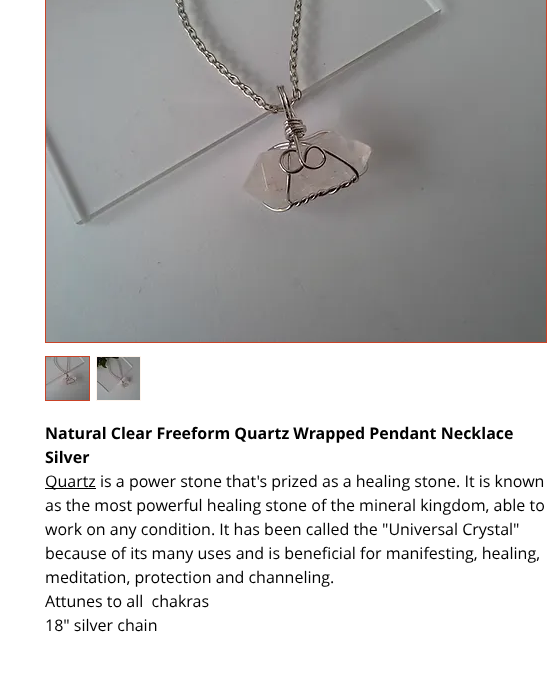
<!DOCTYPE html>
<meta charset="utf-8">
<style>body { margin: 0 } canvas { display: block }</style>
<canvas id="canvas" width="556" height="674"></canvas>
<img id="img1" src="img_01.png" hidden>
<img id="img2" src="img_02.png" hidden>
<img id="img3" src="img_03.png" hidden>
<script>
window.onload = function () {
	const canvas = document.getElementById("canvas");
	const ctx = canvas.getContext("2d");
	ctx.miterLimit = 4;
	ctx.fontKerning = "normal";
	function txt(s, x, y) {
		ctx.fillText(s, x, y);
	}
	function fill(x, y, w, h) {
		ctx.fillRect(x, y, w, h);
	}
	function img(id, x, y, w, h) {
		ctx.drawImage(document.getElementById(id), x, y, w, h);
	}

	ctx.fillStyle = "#FFFFFF";
	fill(0, 0, 556, 674);
	ctx.strokeStyle = "#C94226";
	ctx.strokeRect(45.5, -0.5, 501, 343);
	img("img1", 46, 0, 500, 342);
	ctx.strokeRect(45.5, 356.5, 44, 44);
	img("img2", 46, 357, 43, 43);
	ctx.fillStyle = "#FFF5ED";
	fill(96, 356, 45, 45);
	img("img3", 97, 357, 43, 43);
	ctx.fillStyle = "#000000";
	fill(45, 488, 51, 1);
	ctx.font = "bold 16px Open Sans";
	txt("Natural Clear Freeform Quartz Wrapped Pendant Necklace", 45, 439);
	txt("Silver", 45, 463);
	ctx.font = "16px Open Sans";
	txt("Quartz is a power stone that's prized as a healing stone. It is known", 45, 487);
	txt("as the most powerful healing stone of the mineral kingdom, able to", 45, 511);
	txt("work on any condition. It has been called the \"Universal Crystal\"", 45, 535);
	txt("because of its many uses and is beneficial for manifesting, healing,", 45, 559);
	txt("meditation, protection and channeling.", 45, 583);
	txt("Attunes to all  chakras", 45, 607);
	txt("18\" silver chain", 45, 631);
};
</script>
